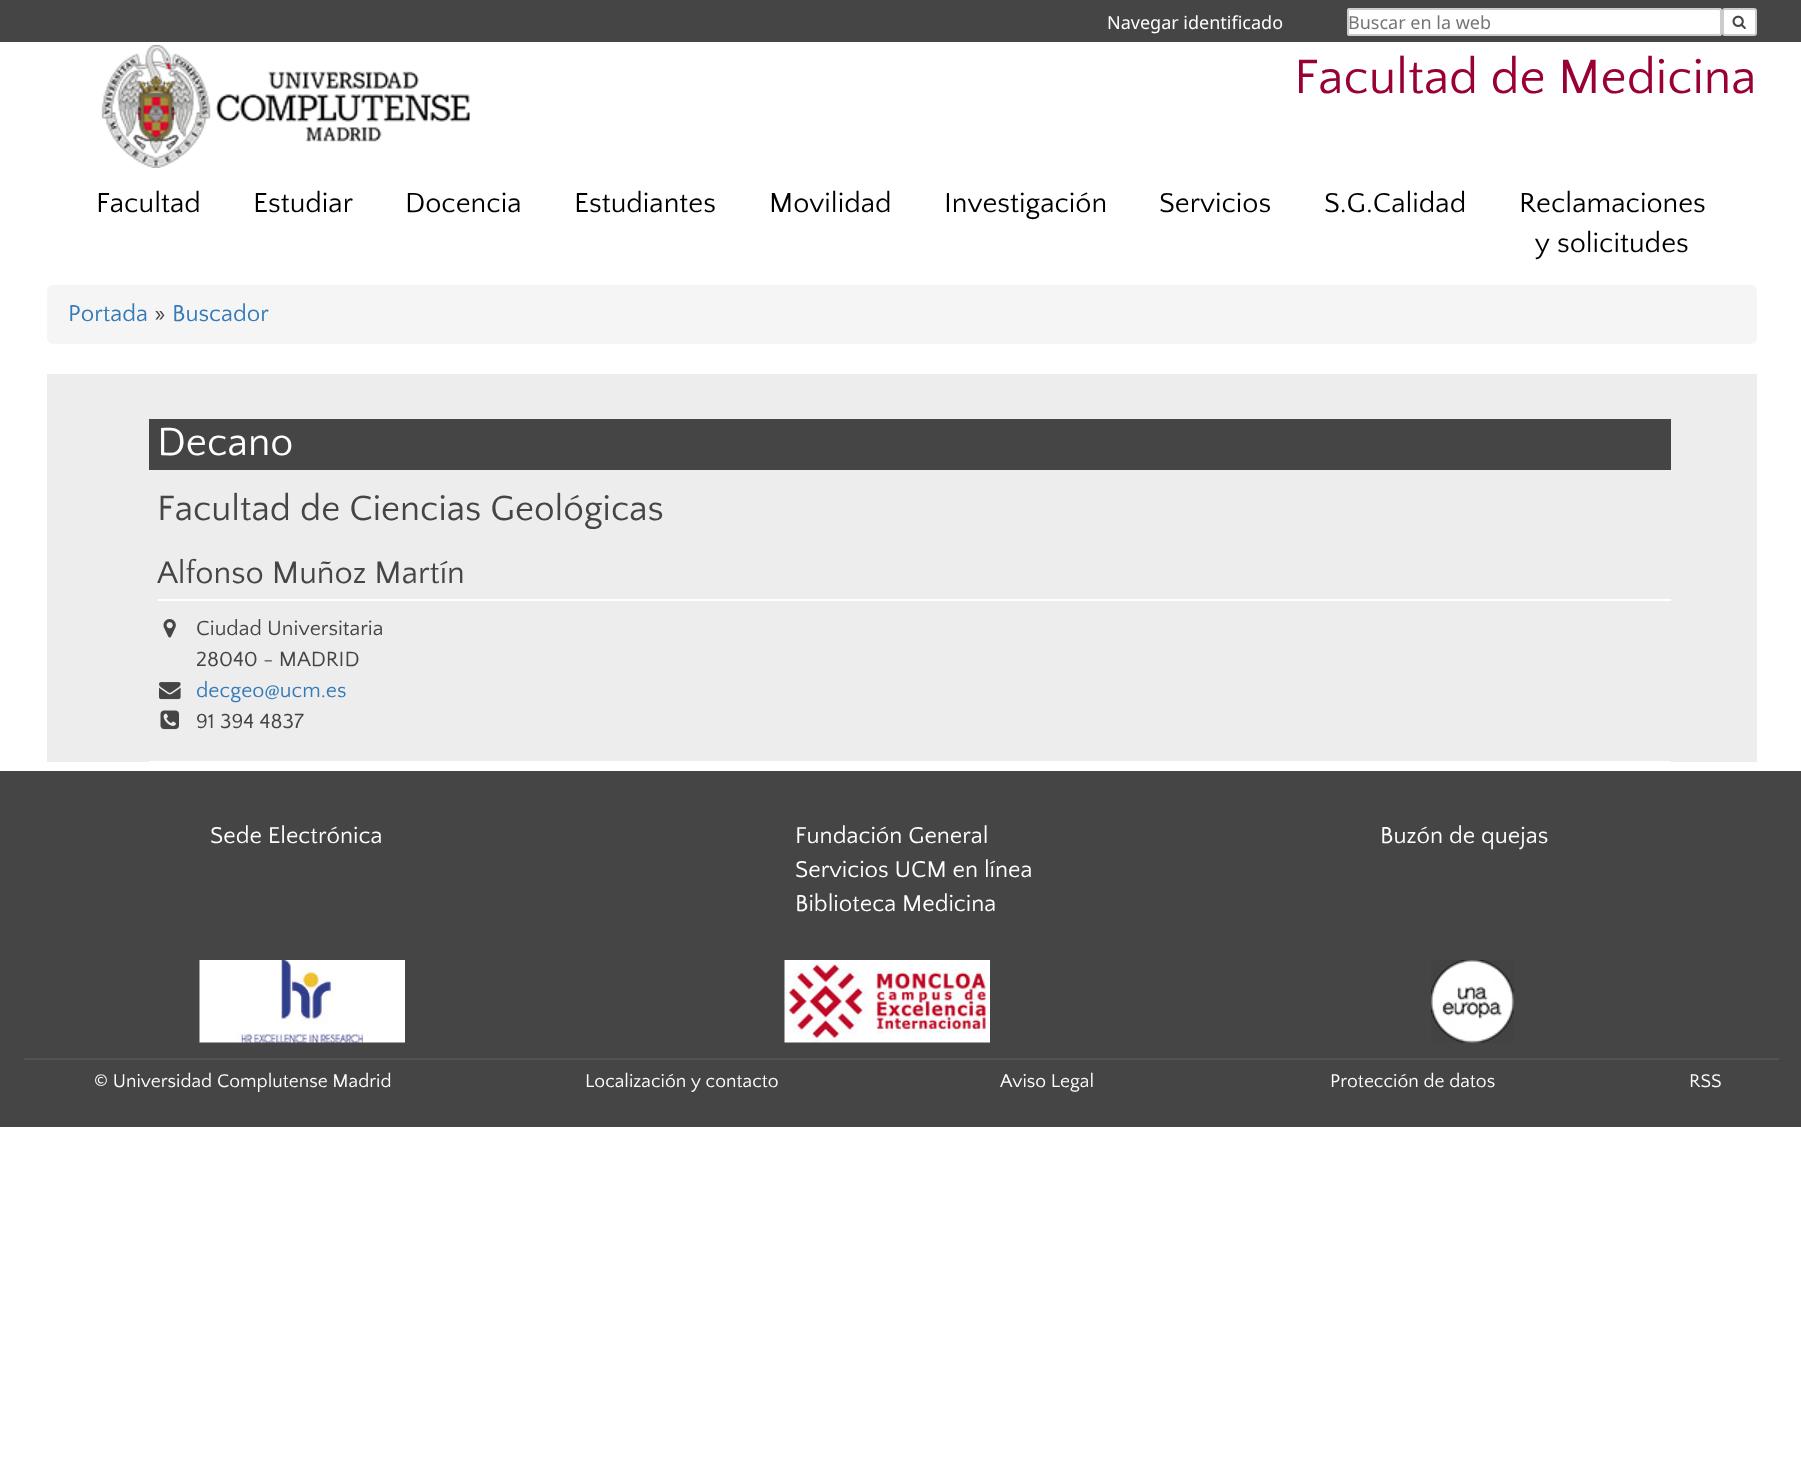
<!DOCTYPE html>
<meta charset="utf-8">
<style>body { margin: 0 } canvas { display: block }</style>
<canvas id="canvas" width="1801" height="1469"></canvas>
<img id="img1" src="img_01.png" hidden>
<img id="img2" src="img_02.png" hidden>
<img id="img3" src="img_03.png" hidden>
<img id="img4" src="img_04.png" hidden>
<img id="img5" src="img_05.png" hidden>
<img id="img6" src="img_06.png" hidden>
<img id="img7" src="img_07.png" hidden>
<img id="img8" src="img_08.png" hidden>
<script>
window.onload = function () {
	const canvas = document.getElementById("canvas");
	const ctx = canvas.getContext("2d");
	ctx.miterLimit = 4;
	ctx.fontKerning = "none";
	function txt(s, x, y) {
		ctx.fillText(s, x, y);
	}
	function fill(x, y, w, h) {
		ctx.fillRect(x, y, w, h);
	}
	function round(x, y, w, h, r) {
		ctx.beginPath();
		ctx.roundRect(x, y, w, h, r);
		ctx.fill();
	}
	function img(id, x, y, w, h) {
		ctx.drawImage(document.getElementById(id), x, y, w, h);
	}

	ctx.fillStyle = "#FFFFFF";
	fill(0, 0, 1801, 1469);
	ctx.fillStyle = "#454545";
	fill(0, 0, 1801, 42);
	ctx.fillStyle = "#FFFFFF";
	round(1347, 8, 375, 28, 3);
	ctx.fillStyle = "#ECECEC";
	ctx.beginPath();
	ctx.moveTo(1350, 10);
	ctx.lineTo(1719, 10);
	ctx.bezierCurveTo(1721, 10, 1720, 19, 1720, 19);
	ctx.lineTo(1720, 35);
	ctx.bezierCurveTo(1721, 35, 1721, 34, 1721, 34);
	ctx.lineTo(1721, 10);
	ctx.bezierCurveTo(1721, 10, 1720, 9, 1720, 9);
	ctx.lineTo(1350, 9);
	ctx.bezierCurveTo(1350, 9, 1349, 10, 1349, 10);
	ctx.closePath();
	ctx.fill();
	ctx.beginPath();
	ctx.roundRect(1348, 9, 373, 26, 2);
	ctx.strokeStyle = "#CCCCCC";
	ctx.lineWidth = 2;
	ctx.stroke();
	ctx.fillStyle = "#FFFFFF";
	ctx.beginPath();
	ctx.roundRect(1723, 9, 33, 26, 2);
	ctx.fill();
	ctx.stroke();
	img("img1", 1732, 15, 14, 14);
	img("img2", 101, 45, 369, 123);
	ctx.fillStyle = "#F5F5F5";
	round(47, 285, 1710, 59, 6);
	ctx.fillStyle = "#EDEDED";
	fill(47, 374, 1710, 388);
	ctx.fillStyle = "#454545";
	fill(149, 419, 1522, 51);
	ctx.fillStyle = "#FFFFFF";
	fill(149, 761, 1522, 1);
	fill(158, 599, 1513, 2);
	img("img3", 163, 619, 13, 19);
	img("img4", 159, 682, 22, 18);
	img("img5", 160, 710, 19, 20);
	ctx.fillStyle = "#454545";
	fill(0, 771, 1801, 356);
	img("img6", 199, 960, 206, 83);
	img("img7", 784, 960, 206, 83);
	img("img8", 1431, 960, 83, 83);
	ctx.fillStyle = "#535353";
	fill(24, 1058, 1755, 2);
	ctx.font = "18px Noto Sans";
	ctx.fillStyle = "#FFFFFF";
	txt("Navegar identificado", 1107, 29);
	ctx.fillStyle = "#757575";
	txt("Buscar en la web", 1348, 29);
	ctx.font = "50.5px Quattrocento Sans";
	ctx.fillStyle = "#990033";
	txt("Facultad de Medicina", 1294, 93);
	ctx.font = "28.75px Quattrocento Sans";
	ctx.fillStyle = "#000000";
	txt("Facultad", 96, 212);
	txt("Estudiar", 253, 212);
	txt("Docencia", 405, 212);
	txt("Estudiantes", 574, 212);
	txt("Movilidad", 769, 212);
	txt("Investigación", 944, 212);
	txt("Servicios", 1159, 212);
	txt("S.G.Calidad", 1324, 212);
	txt("Reclamaciones", 1519, 212);
	txt("y solicitudes", 1535, 252);
	ctx.font = "24px Quattrocento Sans";
	ctx.fillStyle = "#337AB7";
	txt("Portada", 68, 321);
	ctx.fillStyle = "#454545";
	txt("»", 154, 321);
	ctx.fillStyle = "#337AB7";
	txt("Buscador", 172, 321);
	ctx.font = "41px Quattrocento Sans";
	ctx.fillStyle = "#FFFFFF";
	txt("Decano", 157, 455);
	ctx.font = "36.75px Quattrocento Sans";
	ctx.fillStyle = "#454545";
	txt("Facultad de Ciencias Geológicas", 157, 520);
	ctx.font = "32.5px Quattrocento Sans";
	txt("Alfonso Muñoz Martín", 157, 583);
	ctx.font = "21.5px Quattrocento Sans";
	txt("Ciudad Universitaria", 196, 635);
	txt("28040 - MADRID", 196, 666);
	ctx.fillStyle = "#337AB7";
	txt("decgeo@ucm.es", 196, 697);
	ctx.fillStyle = "#454545";
	txt("91 394 4837", 196, 728);
	ctx.font = "24px Quattrocento Sans";
	ctx.fillStyle = "#FFFFFF";
	txt("Sede Electrónica", 210, 843);
	txt("Fundación General", 795, 843);
	txt("Servicios UCM en línea", 795, 877);
	txt("Biblioteca Medicina", 795, 911);
	txt("Buzón de quejas", 1380, 843);
	ctx.font = "19.25px Quattrocento Sans";
	txt("© Universidad Complutense Madrid", 94, 1087);
	txt("Localización y contacto", 585, 1087);
	txt("Aviso Legal", 1000, 1087);
	txt("Protección de datos", 1330, 1087);
	txt("RSS", 1689, 1087);
};
</script>
